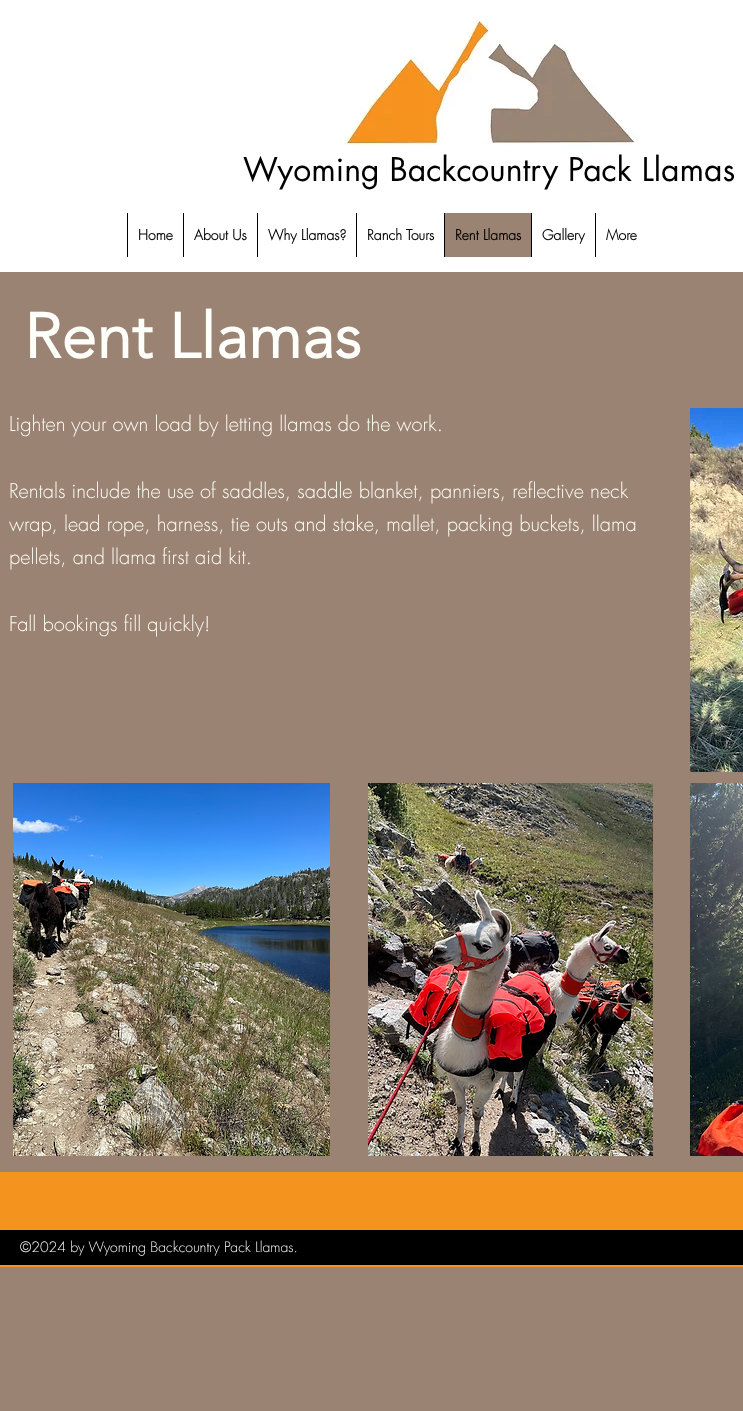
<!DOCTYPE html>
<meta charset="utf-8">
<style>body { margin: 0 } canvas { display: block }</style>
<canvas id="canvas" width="743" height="1411"></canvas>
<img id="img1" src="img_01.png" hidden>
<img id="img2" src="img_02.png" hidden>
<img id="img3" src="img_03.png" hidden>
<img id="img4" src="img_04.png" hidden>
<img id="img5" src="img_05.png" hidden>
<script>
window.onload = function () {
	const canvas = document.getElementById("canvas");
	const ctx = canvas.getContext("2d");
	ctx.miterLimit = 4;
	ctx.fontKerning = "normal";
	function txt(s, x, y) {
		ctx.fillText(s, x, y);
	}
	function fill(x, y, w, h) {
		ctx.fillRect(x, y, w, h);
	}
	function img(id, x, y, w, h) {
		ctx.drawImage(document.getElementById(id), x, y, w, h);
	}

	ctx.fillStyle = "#9B8373";
	fill(0, 0, 743, 1411);
	ctx.fillStyle = "#FFFFFF";
	fill(0, 0, 743, 272);
	img("img1", 343, 19, 292, 127);
	ctx.fillStyle = "#000000";
	fill(127, 213, 1, 44);
	fill(183, 213, 1, 44);
	fill(257, 213, 1, 44);
	fill(356, 213, 1, 44);
	ctx.fillStyle = "#9B8373";
	fill(445, 213, 86, 44);
	ctx.fillStyle = "#000000";
	fill(444, 213, 1, 44);
	fill(531, 213, 1, 44);
	fill(595, 213, 1, 44);
	img("img2", 690, 408, 53, 364);
	img("img3", 13, 783, 317, 373);
	img("img4", 368, 783, 285, 373);
	img("img5", 690, 783, 53, 373);
	ctx.fillStyle = "#F4931D";
	fill(0, 1172, 743, 95);
	ctx.fillStyle = "#000000";
	fill(0, 1230, 743, 35);
	ctx.font = "32px futura";
	txt("Wyoming Backcountry Pack Llamas", 243, 181);
	ctx.font = "bold 14px futura";
	txt("Home", 138, 240);
	txt("About Us", 194, 240);
	txt("Why Llamas?", 268, 240);
	txt("Ranch Tours", 367, 240);
	txt("Rent Llamas", 455, 240);
	txt("Gallery", 542, 240);
	txt("More", 606, 240);
	ctx.font = "bold 63px 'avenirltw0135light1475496'";
	ctx.fillStyle = "#FEFEFA";
	txt("Rent Llamas", 24, 358);
	ctx.font = "300 20px futura";
	ctx.fillStyle = "#FCFCF4";
	txt("Lighten your own load by letting llamas do the work.", 9, 431);
	txt("Rentals include the use of saddles, saddle blanket, panniers, reflective neck", 9, 498);
	txt("wrap, lead rope, harness, tie outs and stake, mallet, packing buckets, llama", 9, 531);
	txt("pellets, and llama first aid kit.", 9, 564);
	txt("Fall bookings fill quickly!", 9, 631);
	ctx.font = "300 14px futura";
	ctx.fillStyle = "#FEFEFA";
	txt("©2024 by Wyoming Backcountry Pack Llamas.", 20, 1252);
};
</script>
